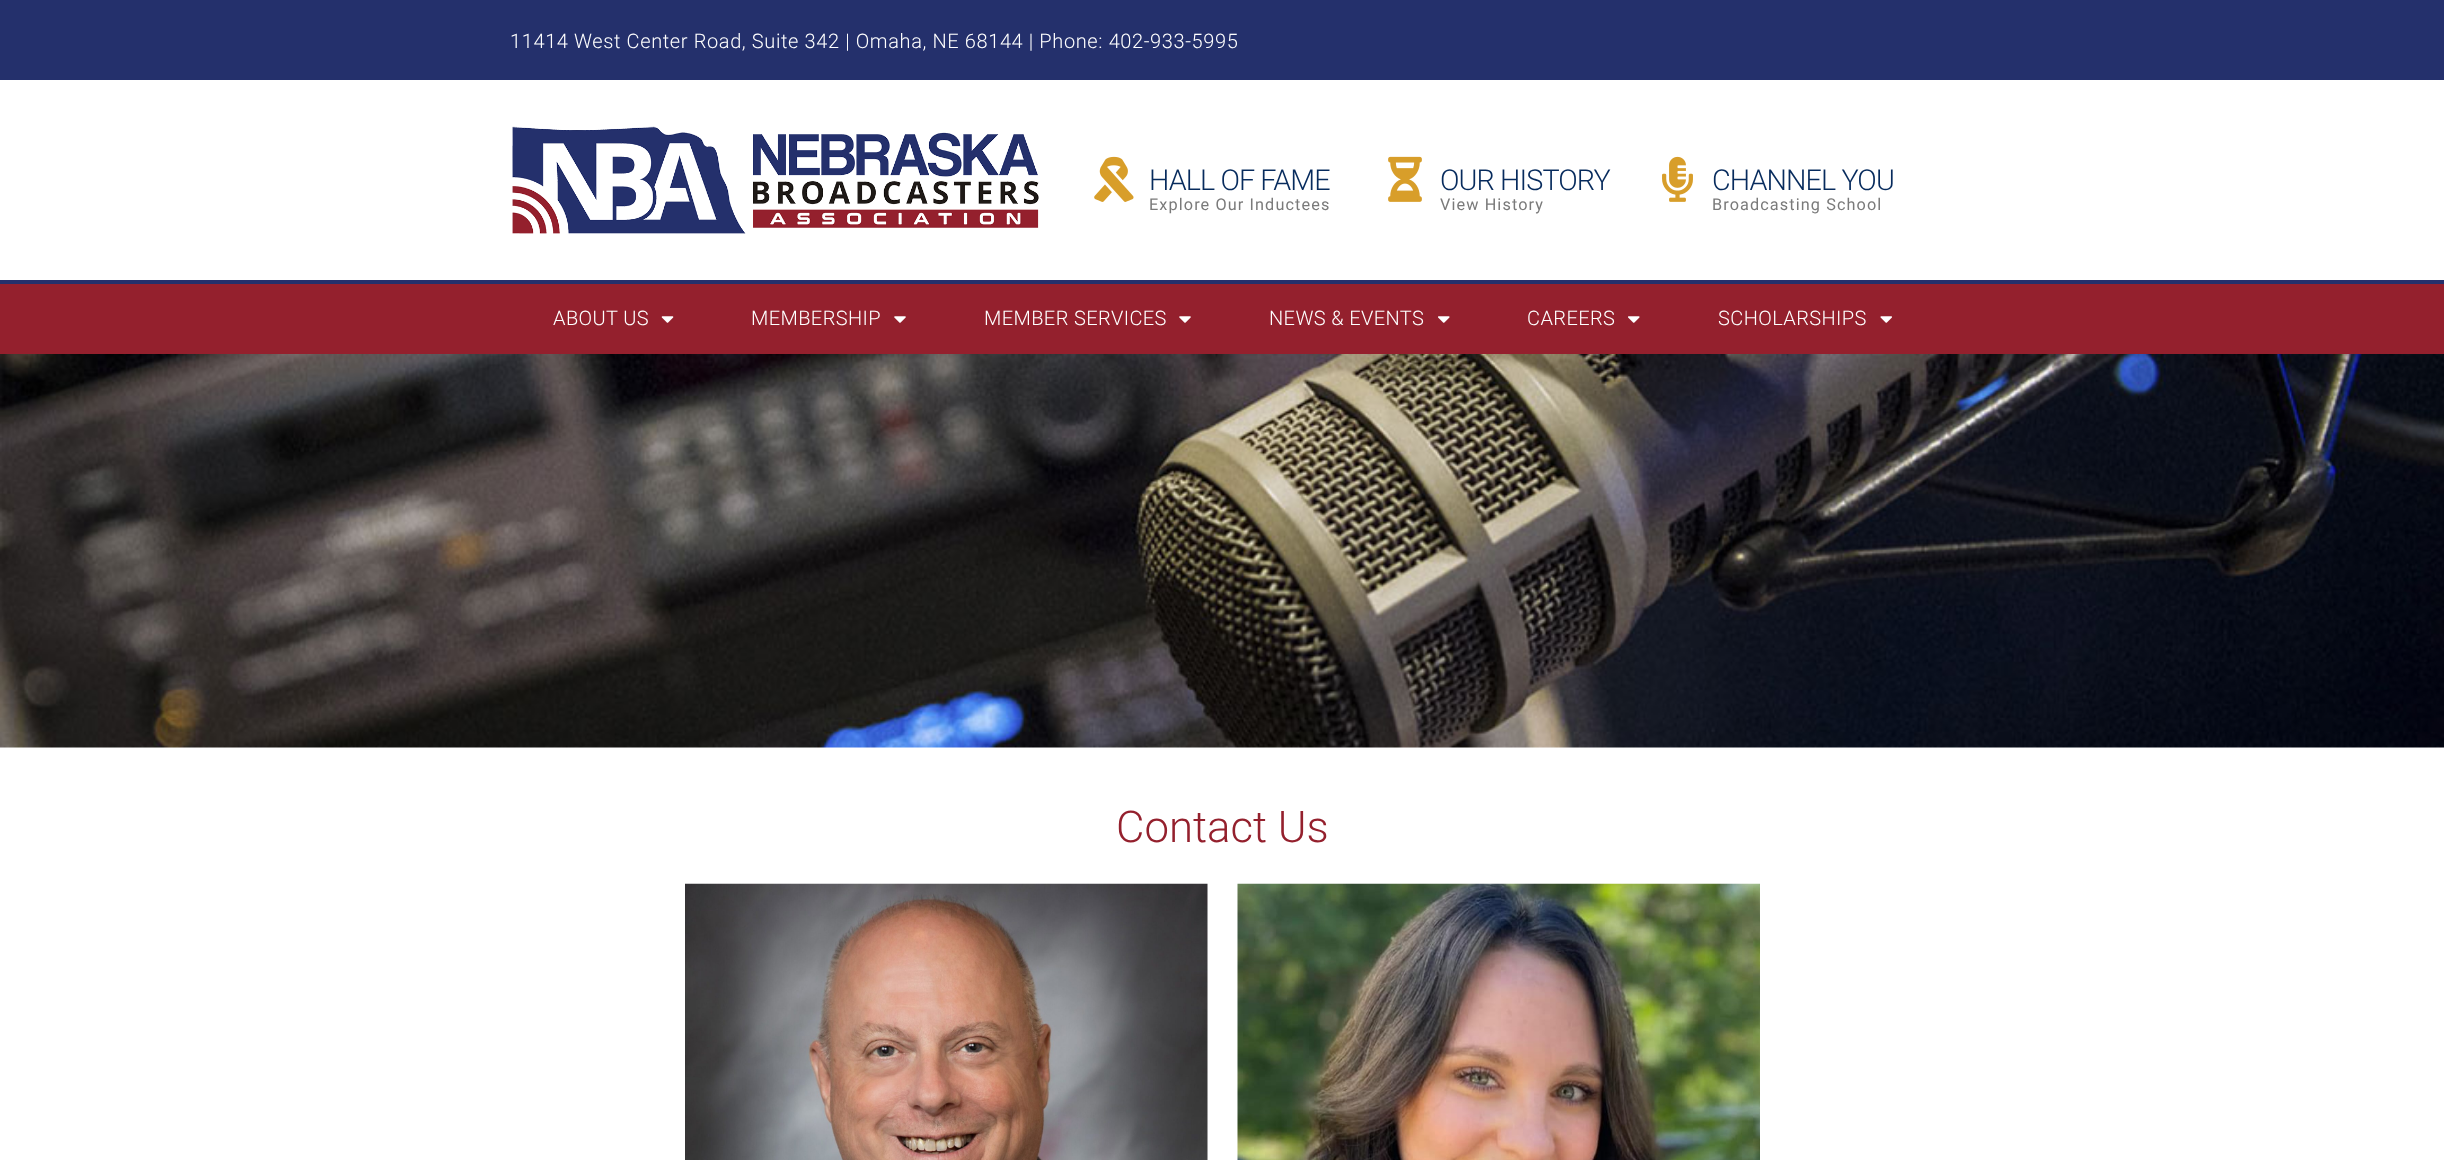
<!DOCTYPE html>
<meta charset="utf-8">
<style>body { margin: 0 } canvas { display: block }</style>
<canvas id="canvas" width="2444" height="1160"></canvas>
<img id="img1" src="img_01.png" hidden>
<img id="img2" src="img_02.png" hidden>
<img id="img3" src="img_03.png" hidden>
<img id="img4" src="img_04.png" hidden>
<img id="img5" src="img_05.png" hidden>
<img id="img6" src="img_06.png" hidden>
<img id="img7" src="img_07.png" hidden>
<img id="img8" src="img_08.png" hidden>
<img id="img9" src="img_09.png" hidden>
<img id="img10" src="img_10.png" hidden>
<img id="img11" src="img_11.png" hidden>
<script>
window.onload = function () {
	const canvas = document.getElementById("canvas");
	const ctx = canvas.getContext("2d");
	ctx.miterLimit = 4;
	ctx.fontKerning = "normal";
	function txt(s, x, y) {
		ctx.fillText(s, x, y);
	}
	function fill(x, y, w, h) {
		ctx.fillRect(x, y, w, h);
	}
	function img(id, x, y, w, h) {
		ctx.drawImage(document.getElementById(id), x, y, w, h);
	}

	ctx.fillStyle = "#FFFFFF";
	fill(0, 0, 2444, 1160);
	ctx.fillStyle = "#24306C";
	fill(0, 0, 2444, 80);
	img("img1", 512, 126, 527, 108);
	img("img2", 1094, 156, 40, 46);
	img("img3", 1388, 156, 34, 46);
	img("img4", 1662, 156, 31, 46);
	ctx.fillStyle = "#94202D";
	fill(0, 284, 2444, 70);
	ctx.fillStyle = "#24306C";
	fill(0, 280, 2444, 4);
	img("img5", 661, 316, 13, 7);
	img("img6", 894, 316, 12, 7);
	img("img6", 1179, 316, 12, 7);
	img("img7", 1438, 316, 12, 7);
	img("img7", 1628, 316, 12, 7);
	img("img8", 1880, 316, 12, 7);
	img("img9", 0, 354, 2444, 394);
	img("img10", 685, 883, 523, 277);
	img("img11", 1237, 883, 523, 277);
	ctx.letterSpacing = "0.62px";
	ctx.font = "300 20px Roboto";
	ctx.fillStyle = "#FFFFFF";
	txt("11414 West Center Road, Suite 342 | Omaha, NE 68144 | Phone: 402-933-5995", 510, 48);
	ctx.letterSpacing = "-0.9px";
	ctx.font = "300 28.75px Roboto";
	ctx.fillStyle = "#072B5D";
	txt("HALL OF FAME", 1149, 190);
	ctx.letterSpacing = "1.1px";
	ctx.font = "16.25px Roboto";
	ctx.fillStyle = "#7A7A7A";
	txt("Explore Our Inductees", 1149, 210);
	ctx.letterSpacing = "-0.9px";
	ctx.font = "300 28.75px Roboto";
	ctx.fillStyle = "#072B5D";
	txt("OUR HISTORY", 1440, 190);
	ctx.letterSpacing = "1.1px";
	ctx.font = "16.25px Roboto";
	ctx.fillStyle = "#7A7A7A";
	txt("View History", 1440, 210);
	ctx.letterSpacing = "-0.9px";
	ctx.font = "300 28.75px Roboto";
	ctx.fillStyle = "#072B5D";
	txt("CHANNEL YOU", 1712, 190);
	ctx.letterSpacing = "1.1px";
	ctx.font = "16.25px Roboto";
	ctx.fillStyle = "#7A7A7A";
	txt("Broadcasting School", 1712, 210);
	ctx.letterSpacing = "0.4px";
	ctx.font = "300 20px Roboto";
	ctx.fillStyle = "#FFFFFF";
	txt("ABOUT US", 553, 325);
	txt("MEMBERSHIP", 751, 325);
	txt("MEMBER SERVICES", 984, 325);
	txt("NEWS & EVENTS", 1269, 325);
	txt("CAREERS", 1527, 325);
	txt("SCHOLARSHIPS", 1718, 325);
	ctx.letterSpacing = "0px";
	ctx.font = "300 43.75px Roboto";
	ctx.fillStyle = "#94202D";
	txt("Contact Us", 1116, 842);
};
</script>
